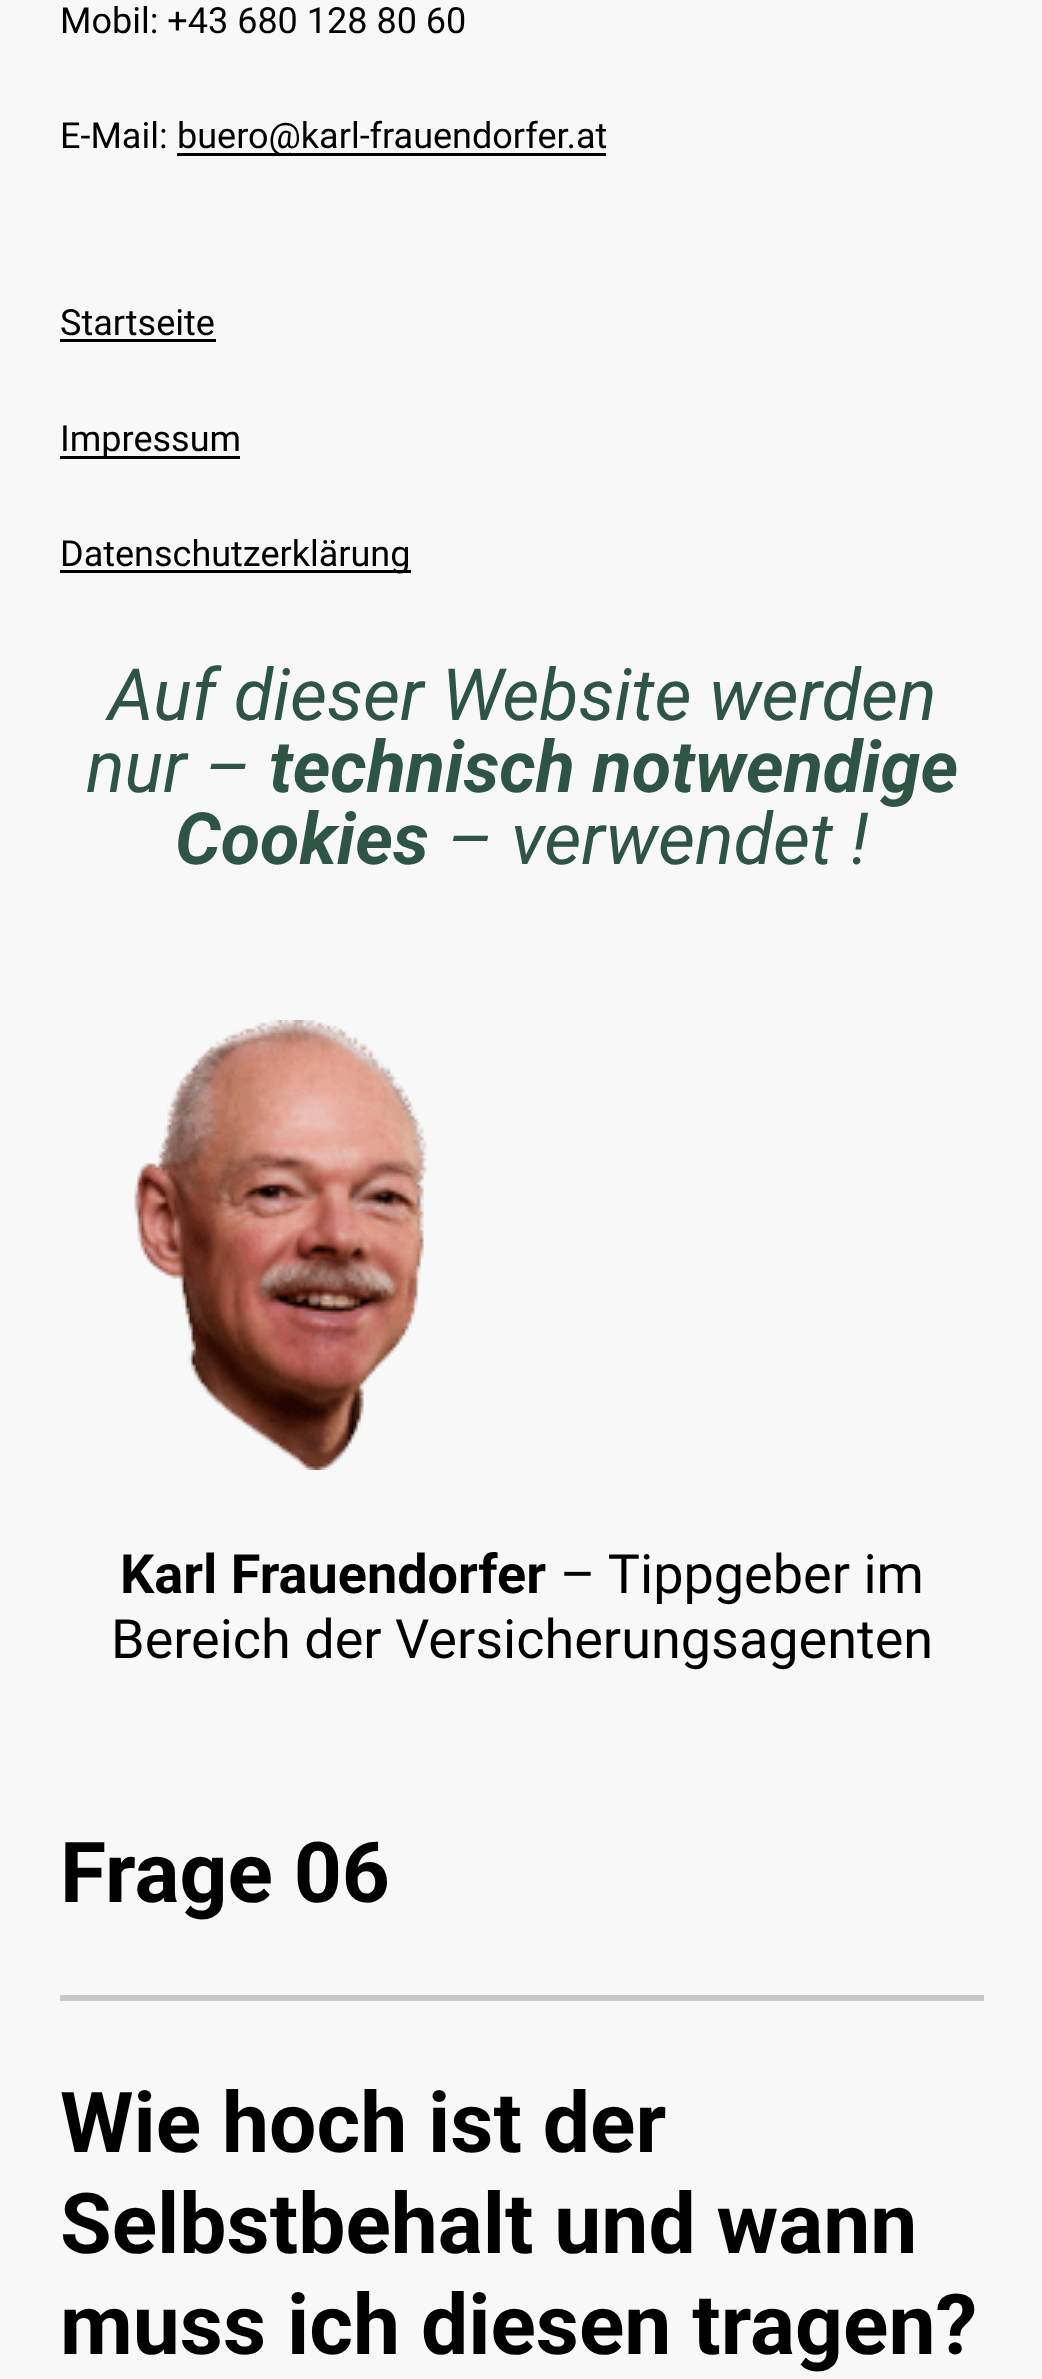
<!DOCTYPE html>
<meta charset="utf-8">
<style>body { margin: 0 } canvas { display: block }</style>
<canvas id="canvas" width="1042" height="2379"></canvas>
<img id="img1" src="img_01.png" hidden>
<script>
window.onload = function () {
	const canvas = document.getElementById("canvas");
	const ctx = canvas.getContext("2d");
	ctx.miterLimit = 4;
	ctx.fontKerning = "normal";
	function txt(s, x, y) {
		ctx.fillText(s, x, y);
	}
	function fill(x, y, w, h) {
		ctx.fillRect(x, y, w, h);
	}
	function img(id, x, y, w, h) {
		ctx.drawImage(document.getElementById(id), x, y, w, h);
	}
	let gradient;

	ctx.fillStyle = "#FFFFFF";
	fill(0, 0, 1042, 2379);
	gradient = ctx.createLinearGradient(522, 0, 522, 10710);
	gradient.addColorStop(0.35, "#F8F8F8");
	gradient.addColorStop(0.82, "#DEEDE6");
	gradient.addColorStop(1, "#D3E7DE");
	ctx.fillStyle = gradient;
	fill(0, 0, 1042, 2379);
	ctx.fillStyle = "#000000";
	fill(177, 153, 429, 3);
	fill(60, 339, 156, 3);
	fill(60, 456, 180, 3);
	fill(60, 570, 351, 3);
	img("img1", 134, 1020, 293, 450);
	ctx.fillStyle = "#C8C8C8";
	fill(60, 1995, 924, 6);
	ctx.font = "36px Roboto";
	ctx.fillStyle = "#000000";
	txt("Mobil: +43 680 128 80 60", 60, 33);
	txt("E-Mail:", 60, 148);
	txt("buero@karl-frauendorfer.at", 177, 148);
	txt("Startseite", 60, 335);
	txt("Impressum", 60, 451);
	txt("Datenschutzerklärung", 60, 566);
	ctx.font = "italic 72px Roboto";
	ctx.fillStyle = "#2E5446";
	txt("Auf dieser Website werden", 108, 720);
	txt("nur –", 86, 792);
	ctx.font = "italic bold 72px Roboto";
	txt("technisch notwendige", 269, 792);
	txt("Cookies", 175, 864);
	ctx.font = "italic 72px Roboto";
	txt("– verwendet !", 447, 864);
	ctx.font = "bold 54px Roboto";
	ctx.fillStyle = "#000000";
	txt("Karl Frauendorfer", 120, 1593);
	ctx.font = "54px Roboto";
	txt("– Tippgeber im", 560, 1593);
	txt("Bereich der Versicherungsagenten", 111, 1658);
	ctx.font = "bold 84px Roboto";
	txt("Frage 06", 60, 1902);
	txt("Wie hoch ist der", 60, 2152);
	txt("Selbstbehalt und wann", 60, 2253);
	txt("muss ich diesen tragen?", 60, 2354);
};
</script>
